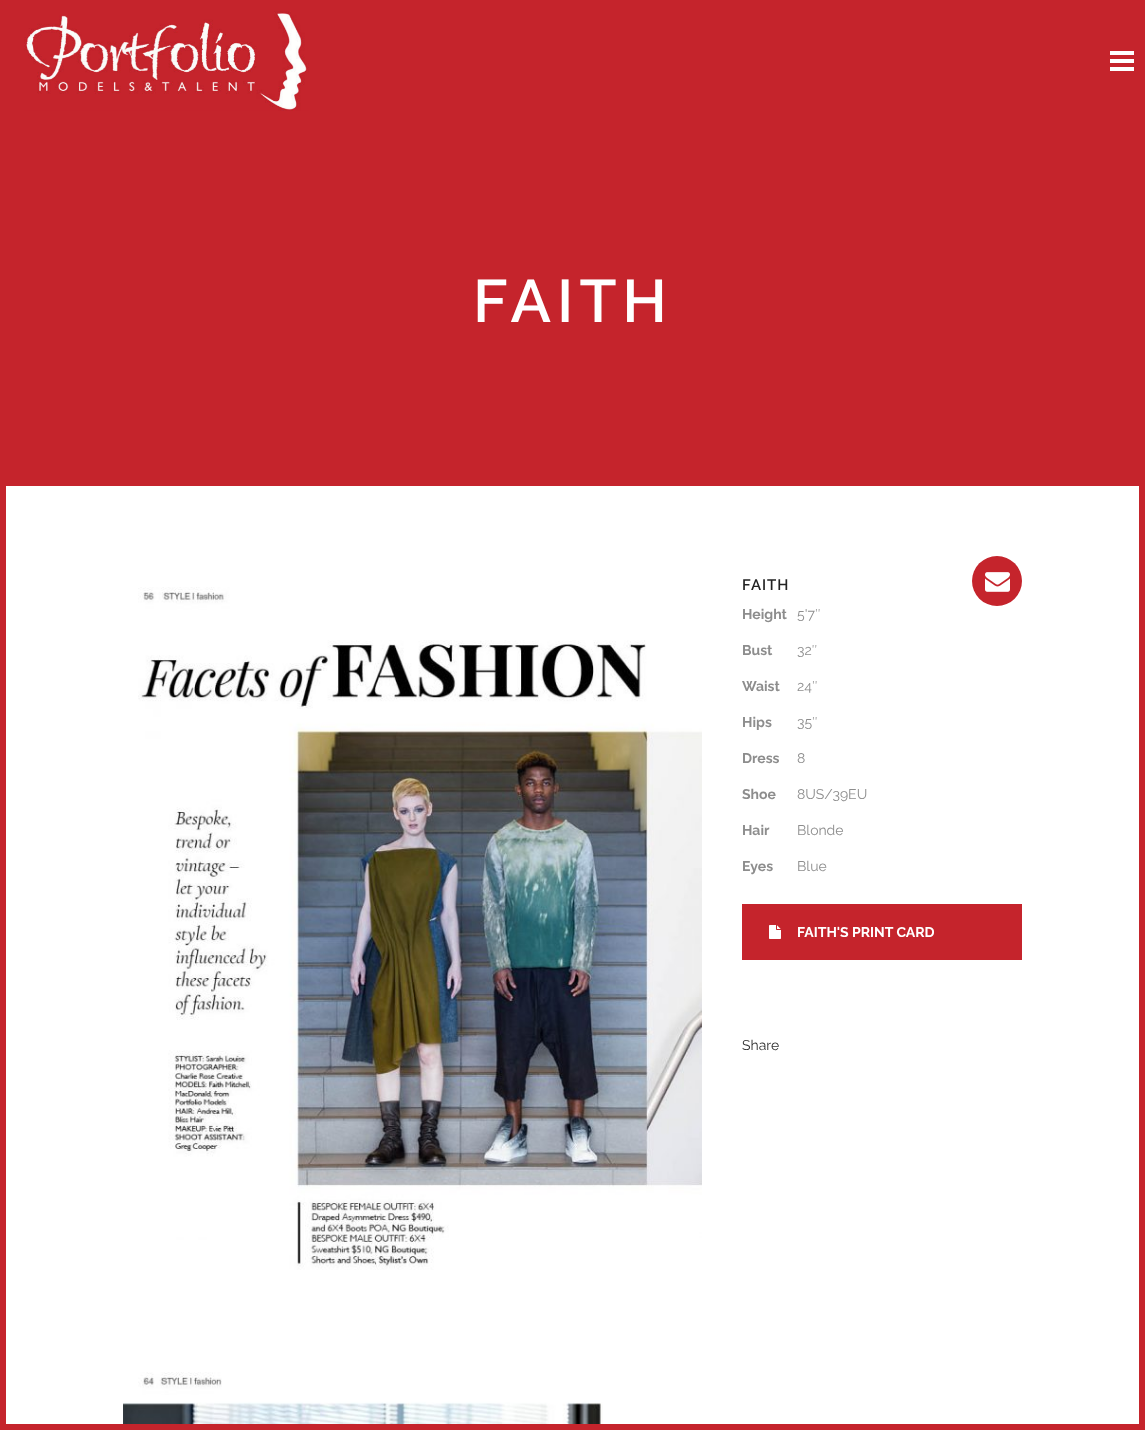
<!DOCTYPE html>
<meta charset="utf-8">
<style>body { margin: 0 } canvas { display: block }</style>
<canvas id="canvas" width="1145" height="1430"></canvas>
<img id="img1" src="img_01.png" hidden>
<img id="img2" src="img_02.png" hidden>
<img id="img3" src="img_03.png" hidden>
<img id="img4" src="img_04.png" hidden>
<img id="img5" src="img_05.png" hidden>
<script>
window.onload = function () {
	const canvas = document.getElementById("canvas");
	const ctx = canvas.getContext("2d");
	ctx.miterLimit = 4;
	ctx.fontKerning = "normal";
	function txt(s, x, y) {
		ctx.fillText(s, x, y);
	}
	function fill(x, y, w, h) {
		ctx.fillRect(x, y, w, h);
	}
	function img(id, x, y, w, h) {
		ctx.drawImage(document.getElementById(id), x, y, w, h);
	}

	ctx.fillStyle = "#C5242C";
	fill(0, 0, 1145, 1430);
	img("img1", 24, 11, 285, 100);
	ctx.fillStyle = "#FFFFFF";
	fill(1110, 59, 24, 4);
	fill(1110, 51, 24, 4);
	fill(1110, 67, 24, 4);
	fill(6, 486, 1133, 938);
	img("img2", 138, 587, 564, 683);
	img("img3", 123, 1372, 480, 52);
	ctx.fillStyle = "#C5242C";
	ctx.beginPath();
	ctx.arc(997, 581, 25, 0, Math.PI * 2);
	ctx.fill();
	img("img4", 985, 572, 25, 20);
	fill(742, 904, 280, 56);
	img("img5", 769, 925, 12, 14);
	ctx.letterSpacing = "6px";
	ctx.font = "600 60px Raleway";
	ctx.fillStyle = "#FFFFFF";
	txt("FAITH", 473, 322);
	ctx.letterSpacing = "1px";
	ctx.font = "600 15px Raleway";
	ctx.fillStyle = "#222222";
	txt("FAITH", 742, 590);
	ctx.letterSpacing = "0px";
	ctx.font = "bold 14px Raleway";
	ctx.fillStyle = "#8D8D8D";
	txt("Height", 742, 619);
	ctx.font = "14px Raleway";
	txt("5'7″", 797, 619);
	ctx.font = "bold 14px Raleway";
	txt("Bust", 742, 655);
	ctx.font = "14px Raleway";
	txt("32″", 797, 655);
	ctx.font = "bold 14px Raleway";
	txt("Waist", 742, 691);
	ctx.font = "14px Raleway";
	txt("24″", 797, 691);
	ctx.font = "bold 14px Raleway";
	txt("Hips", 742, 727);
	ctx.font = "14px Raleway";
	txt("35″", 797, 727);
	ctx.font = "bold 14px Raleway";
	txt("Dress", 742, 763);
	ctx.font = "14px Raleway";
	txt("8", 797, 763);
	ctx.font = "bold 14px Raleway";
	txt("Shoe", 742, 799);
	ctx.font = "14px Raleway";
	txt("8US/39EU", 797, 799);
	ctx.font = "bold 14px Raleway";
	txt("Hair", 742, 835);
	ctx.font = "14px Raleway";
	txt("Blonde", 797, 835);
	ctx.font = "bold 14px Raleway";
	txt("Eyes", 742, 871);
	ctx.font = "14px Raleway";
	txt("Blue", 797, 871);
	ctx.font = "bold 14px Raleway";
	ctx.fillStyle = "#FFFFFF";
	txt("FAITH'S PRINT CARD", 797, 937);
	ctx.font = "14px Raleway";
	ctx.fillStyle = "#303030";
	txt("Share", 742, 1050);
};
</script>
